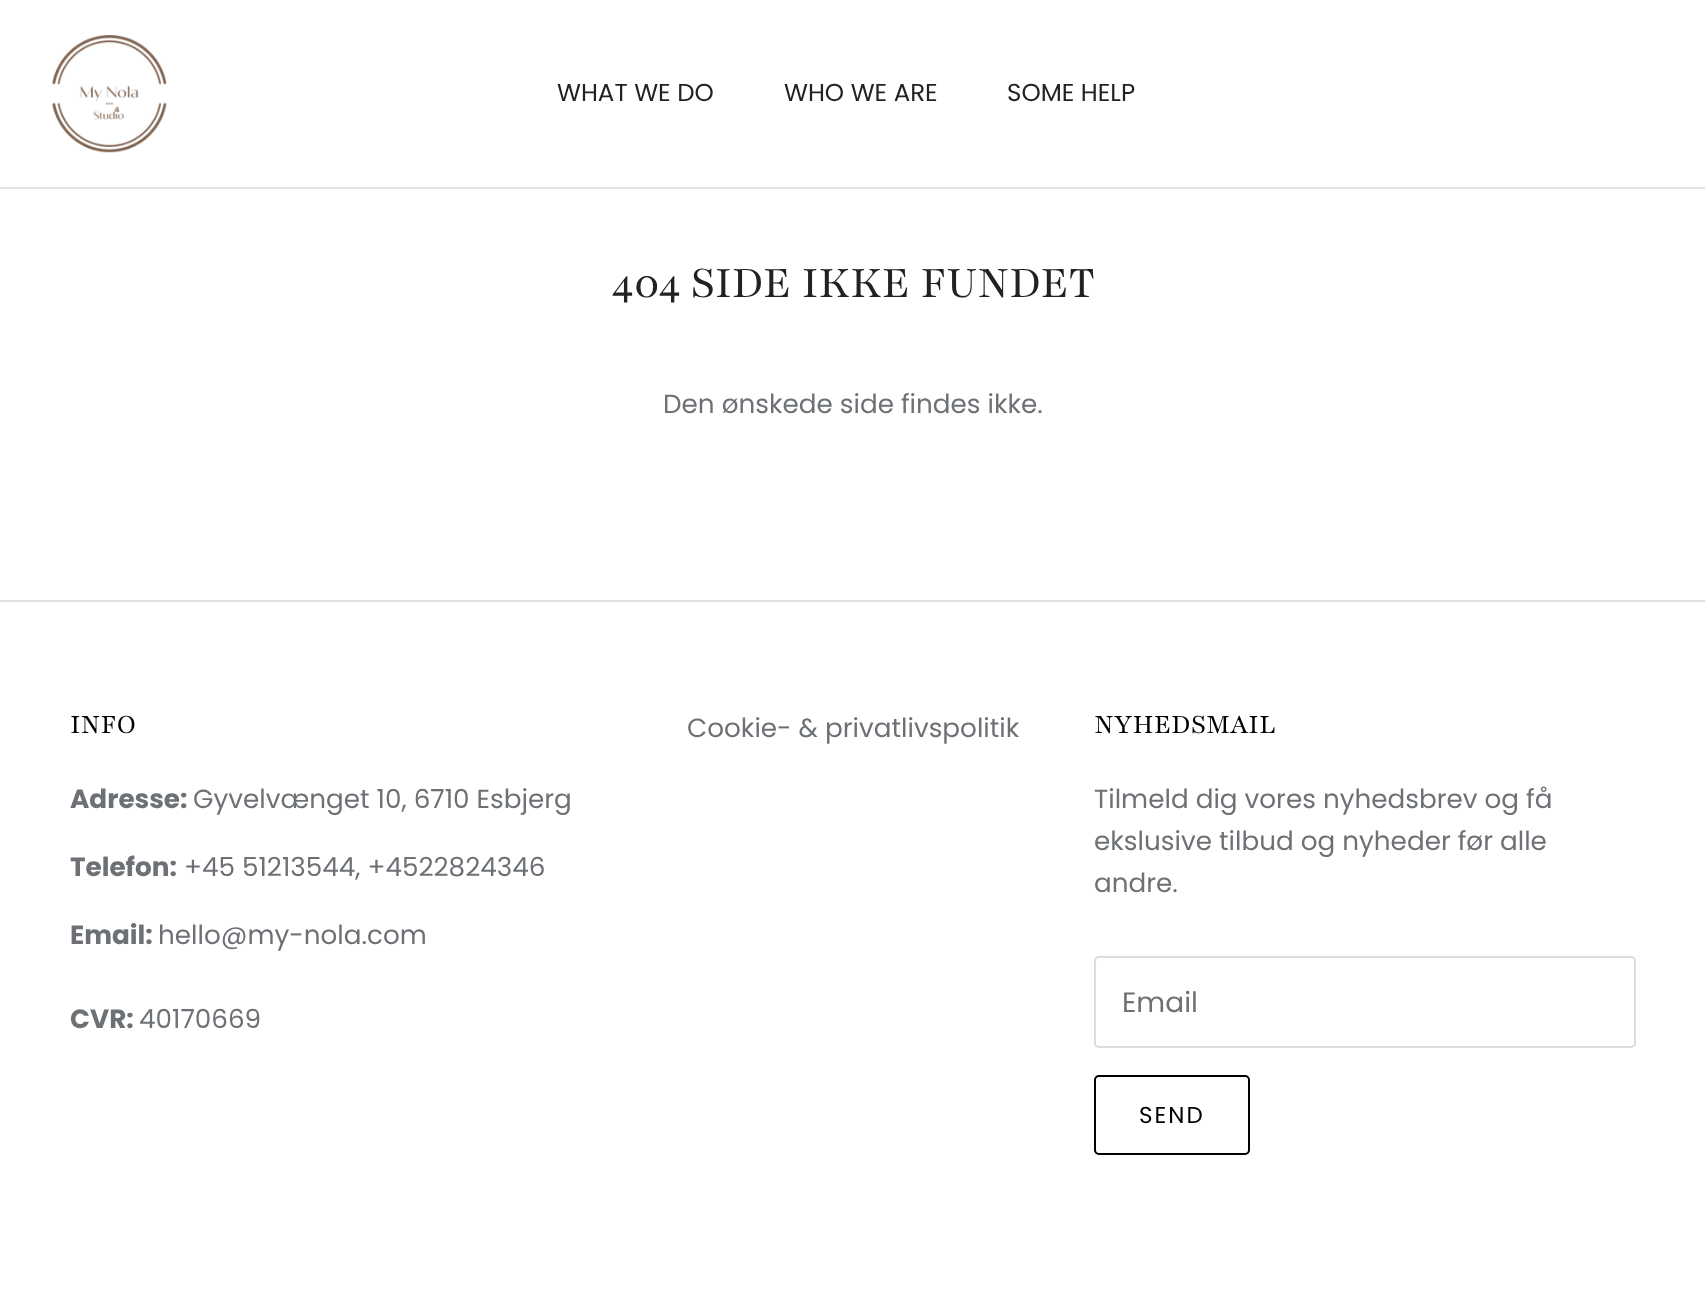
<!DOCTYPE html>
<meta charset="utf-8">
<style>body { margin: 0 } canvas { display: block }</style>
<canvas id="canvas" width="1705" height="1297"></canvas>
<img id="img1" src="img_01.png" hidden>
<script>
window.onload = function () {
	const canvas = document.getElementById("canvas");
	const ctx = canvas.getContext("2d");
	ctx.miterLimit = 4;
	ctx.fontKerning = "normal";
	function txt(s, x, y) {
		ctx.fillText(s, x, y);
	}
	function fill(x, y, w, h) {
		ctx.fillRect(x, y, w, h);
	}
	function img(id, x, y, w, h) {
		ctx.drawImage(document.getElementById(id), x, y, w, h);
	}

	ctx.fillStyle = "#FFFFFF";
	fill(0, 0, 1705, 1297);
	ctx.fillStyle = "#E2E2E2";
	fill(0, 187, 1705, 2);
	img("img1", 52, 35, 115, 118);
	ctx.fillStyle = "#E0E0E0";
	fill(0, 600, 1705, 2);
	ctx.beginPath();
	ctx.roundRect(1095, 957, 540, 90, 4);
	ctx.strokeStyle = "#DBDCDD";
	ctx.lineWidth = 2;
	ctx.stroke();
	ctx.beginPath();
	ctx.roundRect(1095, 1076, 154, 78, 4);
	ctx.strokeStyle = "#000000";
	ctx.stroke();
	ctx.font = "24.5px Poppins";
	ctx.fillStyle = "#202223";
	txt("WHAT WE DO", 557, 101);
	txt("WHO WE ARE", 784, 101);
	txt("SOME HELP", 1007, 101);
	ctx.font = "49px Playfair";
	txt("404 SIDE IKKE FUNDET", 612, 297);
	ctx.font = "26.25px Poppins";
	ctx.fillStyle = "#6D7175";
	txt("Den ønskede side findes ikke.", 663, 413);
	ctx.font = "29.75px 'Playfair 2'";
	ctx.fillStyle = "#000000";
	txt("INFO", 70, 733);
	ctx.font = "bold 26.25px Poppins";
	ctx.fillStyle = "#6D7175";
	txt("Adresse:", 70, 808);
	ctx.font = "26.25px Poppins";
	txt("Gyvelvænget 10, 6710 Esbjerg", 193, 808);
	ctx.font = "bold 26.25px Poppins";
	txt("Telefon:", 70, 876);
	ctx.font = "26.25px Poppins";
	txt("+45 51213544, +4522824346", 184, 876);
	ctx.font = "bold 26.25px Poppins";
	txt("Email:", 70, 944);
	ctx.font = "26.25px Poppins";
	txt("hello@my-nola.com", 158, 944);
	ctx.font = "bold 26.25px Poppins";
	txt("CVR:", 70, 1028);
	ctx.font = "26.25px Poppins";
	txt("40170669", 139, 1028);
	txt("Cookie- & privatlivspolitik", 687, 737);
	ctx.font = "29.75px 'Playfair 2'";
	ctx.fillStyle = "#000000";
	txt("NYHEDSMAIL", 1094, 733);
	ctx.font = "26.25px Poppins";
	ctx.fillStyle = "#6D7175";
	txt("Tilmeld dig vores nyhedsbrev og få", 1094, 808);
	txt("ekslusive tilbud og nyheder før alle", 1094, 850);
	txt("andre.", 1094, 892);
	ctx.font = "28px Poppins";
	txt("Email", 1122, 1012);
	ctx.letterSpacing = "2px";
	ctx.font = "23px Poppins";
	ctx.fillStyle = "#000000";
	txt("SEND", 1139, 1123);
};
</script>
